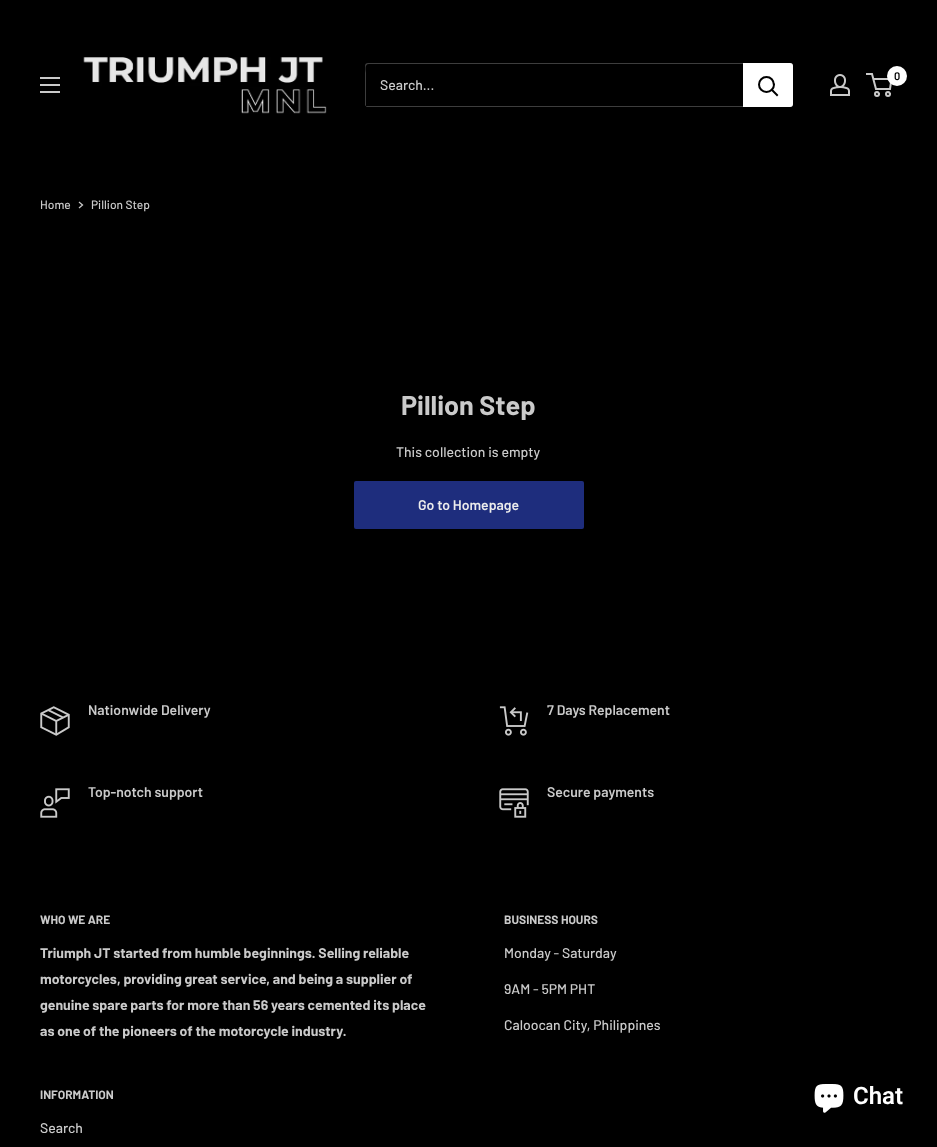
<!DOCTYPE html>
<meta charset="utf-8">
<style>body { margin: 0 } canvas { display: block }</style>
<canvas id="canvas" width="937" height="1147"></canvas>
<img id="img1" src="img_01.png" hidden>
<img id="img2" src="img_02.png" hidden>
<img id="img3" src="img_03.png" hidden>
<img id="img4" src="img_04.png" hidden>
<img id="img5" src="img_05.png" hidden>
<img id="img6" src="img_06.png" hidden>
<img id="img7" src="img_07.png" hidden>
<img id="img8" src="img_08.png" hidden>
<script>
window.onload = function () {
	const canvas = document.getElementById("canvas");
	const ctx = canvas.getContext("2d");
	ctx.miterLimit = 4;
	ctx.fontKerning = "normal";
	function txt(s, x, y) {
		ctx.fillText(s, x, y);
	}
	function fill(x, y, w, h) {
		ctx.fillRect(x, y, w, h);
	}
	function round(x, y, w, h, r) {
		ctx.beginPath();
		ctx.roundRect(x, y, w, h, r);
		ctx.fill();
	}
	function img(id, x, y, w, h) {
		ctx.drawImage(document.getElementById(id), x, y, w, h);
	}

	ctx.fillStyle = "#000000";
	fill(0, 0, 937, 1147);
	img("img1", 40, 77, 20, 16);
	img("img2", 83, 57, 244, 57);
	ctx.fillStyle = "#3D3D3D";
	ctx.beginPath();
	ctx.moveTo(366, 106);
	ctx.bezierCurveTo(366, 107, 367, 107, 368, 107);
	ctx.lineTo(790, 107);
	ctx.bezierCurveTo(792, 107, 793, 106, 793, 104);
	ctx.lineTo(793, 66);
	ctx.bezierCurveTo(793, 65, 793, 64, 792, 64);
	ctx.lineTo(792, 97);
	ctx.bezierCurveTo(792, 99, 794, 106, 789, 106);
	ctx.closePath();
	ctx.fill();
	ctx.beginPath();
	ctx.moveTo(369, 64);
	ctx.lineTo(792, 64);
	ctx.bezierCurveTo(792, 63, 791, 63, 790, 63);
	ctx.lineTo(368, 63);
	ctx.bezierCurveTo(366, 63, 365, 64, 365, 66);
	ctx.lineTo(365, 104);
	ctx.bezierCurveTo(365, 105, 365, 106, 366, 106);
	ctx.lineTo(366, 73);
	ctx.bezierCurveTo(366, 71, 364, 64, 369, 64);
	ctx.closePath();
	ctx.fill();
	ctx.fillStyle = "#FFFFFF";
	ctx.beginPath();
	ctx.roundRect(743, 63, 50, 44, [0, 3, 3, 0]);
	ctx.fill();
	ctx.beginPath();
	ctx.moveTo(777, 95);
	ctx.lineTo(772, 90);
	ctx.strokeStyle = "#000000";
	ctx.lineWidth = 2;
	ctx.lineCap = "square";
	ctx.stroke();
	ctx.beginPath();
	ctx.arc(766.5, 84.5, 7.5, 0, Math.PI * 2);
	ctx.stroke();
	img("img3", 830, 74, 20, 22);
	ctx.beginPath();
	ctx.arc(877, 94, 2, 0, Math.PI * 2);
	ctx.strokeStyle = "#CACACA";
	ctx.stroke();
	ctx.beginPath();
	ctx.arc(888, 94, 2, 0, Math.PI * 2);
	ctx.stroke();
	ctx.beginPath();
	ctx.moveTo(873.5, 79);
	ctx.lineTo(891.5, 79);
	ctx.lineTo(890, 89);
	ctx.lineTo(876, 89);
	ctx.lineTo(872, 74);
	ctx.lineTo(866, 74);
	ctx.lineCap = "butt";
	ctx.stroke();
	ctx.beginPath();
	ctx.arc(897, 76, 10, 0, Math.PI * 2);
	ctx.fill();
	ctx.beginPath();
	ctx.moveTo(79.5, 202.5);
	ctx.lineTo(82.5, 205);
	ctx.lineTo(79.5, 207.5);
	ctx.lineWidth = 1.3;
	ctx.lineCap = "square";
	ctx.stroke();
	ctx.fillStyle = "#1E2D7D";
	round(354, 481, 230, 48, 2);
	img("img4", 40, 706, 30, 30);
	img("img5", 499, 706, 30, 30);
	img("img6", 40, 788, 30, 30);
	img("img7", 499, 788, 30, 30);
	img("img8", 814, 1084, 30, 29);
	ctx.font = "500 14px Barlow";
	ctx.fillStyle = "#CACACA";
	txt("Search...", 380, 90);
	ctx.font = "600 11px Barlow";
	ctx.fillStyle = "#000000";
	txt("0", 894, 80);
	ctx.font = "500 12px Barlow";
	ctx.fillStyle = "#CACACA";
	txt("Home", 40, 209);
	txt("Pillion Step", 91, 209);
	ctx.font = "bold 27px Barlow";
	txt("Pillion Step", 401, 415);
	ctx.font = "500 14px Barlow";
	txt("This collection is empty", 396, 457);
	ctx.font = "600 14px Barlow";
	ctx.fillStyle = "#ECECEC";
	txt("Go to Homepage", 418, 510);
	ctx.fillStyle = "#CACACA";
	txt("Nationwide Delivery", 88, 715);
	txt("7 Days Replacement", 547, 715);
	txt("Top-notch support", 88, 797);
	txt("Secure payments", 547, 797);
	ctx.font = "bold 12px Barlow";
	txt("WHO WE ARE", 40, 924);
	ctx.font = "bold 14px Barlow";
	txt("Triumph JT started from humble beginnings. Selling reliable", 40, 958);
	txt("motorcycles, providing great service, and being a supplier of", 40, 984);
	txt("genuine spare parts for more than 56 years cemented its place", 40, 1010);
	txt("as one of the pioneers of the motorcycle industry.", 40, 1036);
	ctx.font = "bold 12px Barlow";
	txt("BUSINESS HOURS", 504, 924);
	ctx.font = "500 14px Barlow";
	txt("Monday - Saturday", 504, 958);
	txt("9AM - 5PM PHT", 504, 994);
	txt("Caloocan City, Philippines", 504, 1030);
	ctx.font = "bold 12px Barlow";
	txt("INFORMATION", 40, 1099);
	ctx.font = "500 14px Barlow";
	txt("Search", 40, 1133);
	ctx.font = "600 24px Roboto";
	ctx.fillStyle = "#FFFFFF";
	txt("Chat", 853, 1104);
};
</script>
